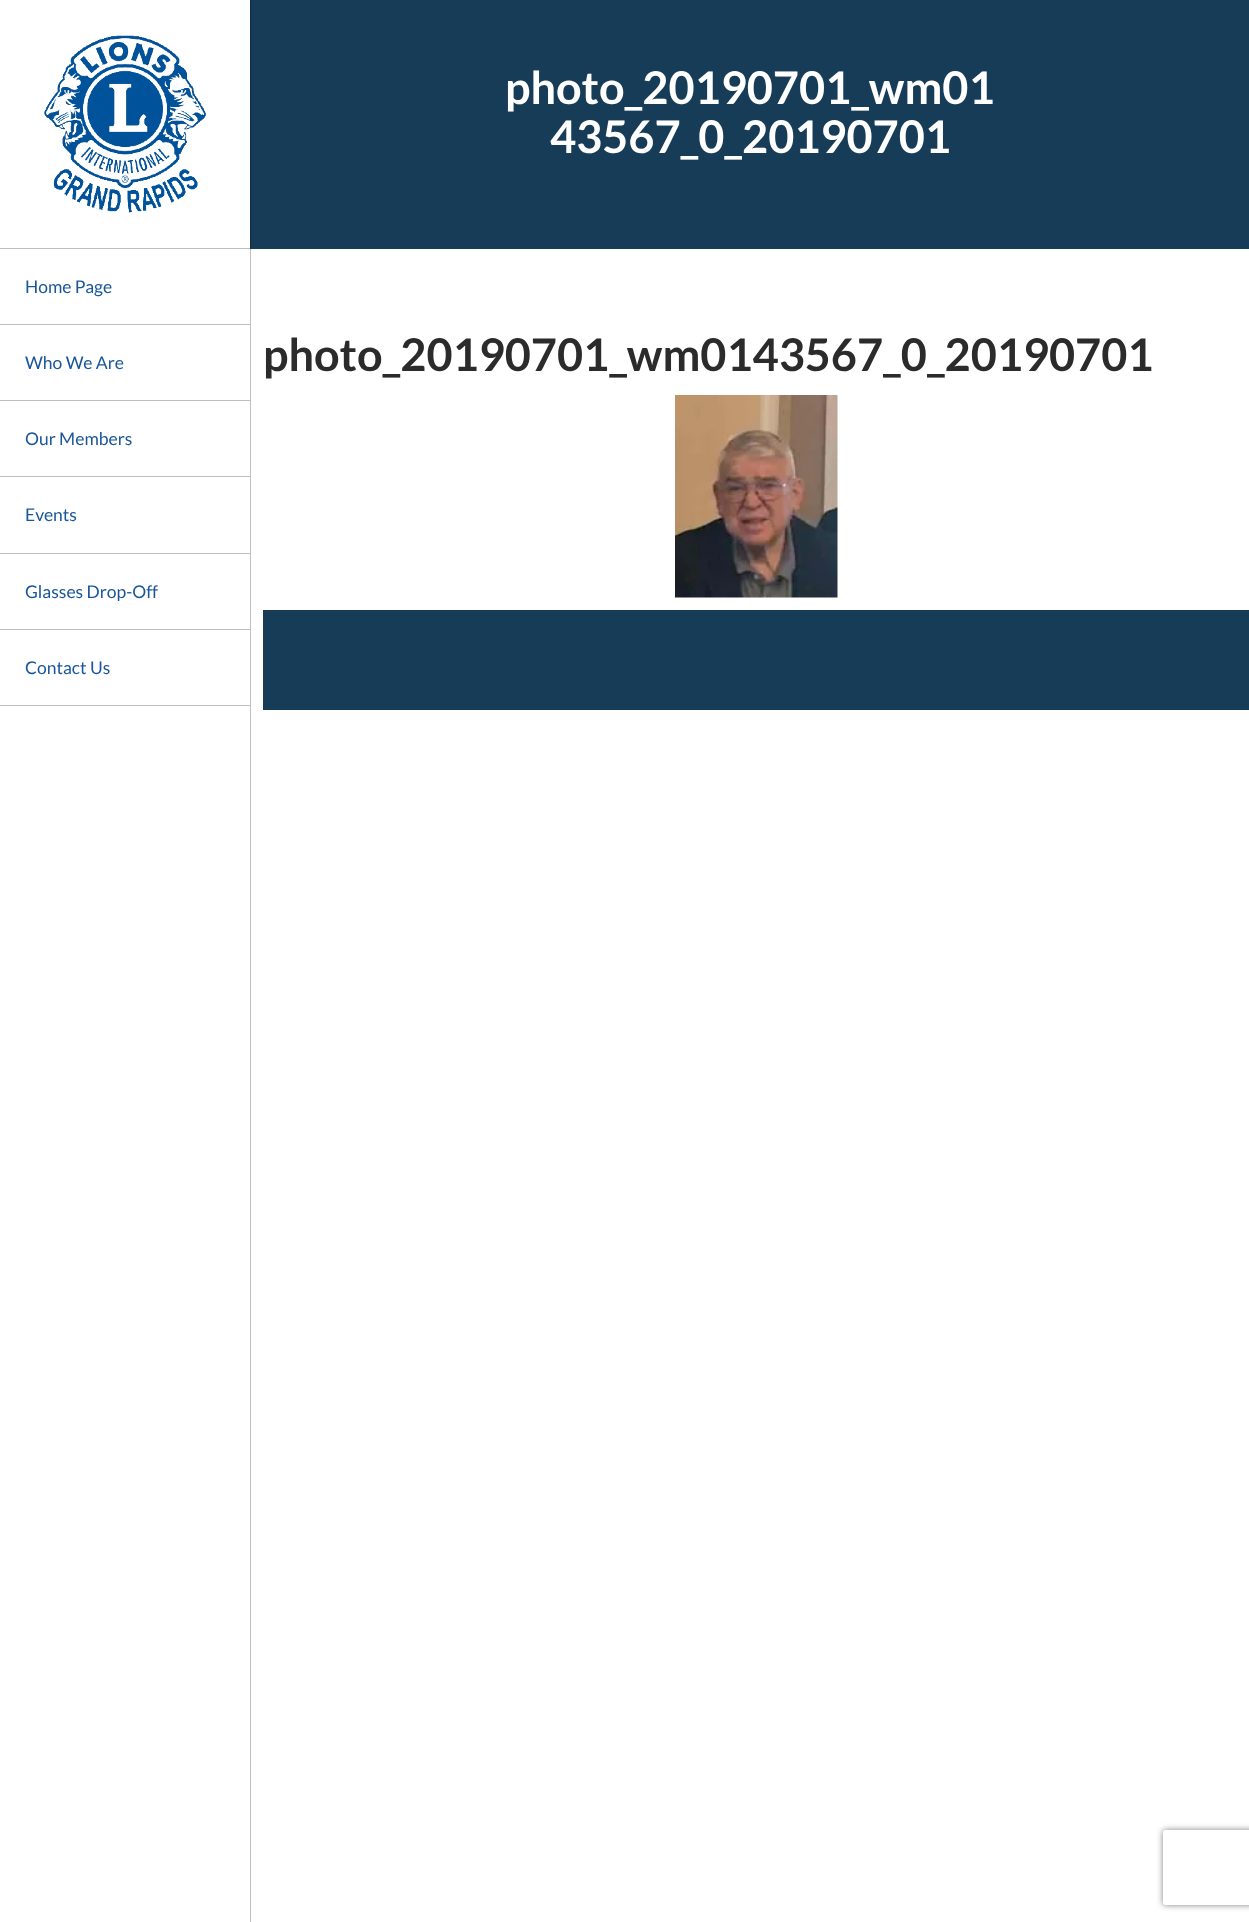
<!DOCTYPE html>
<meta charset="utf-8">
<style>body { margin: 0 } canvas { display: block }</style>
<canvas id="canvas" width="1249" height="1922"></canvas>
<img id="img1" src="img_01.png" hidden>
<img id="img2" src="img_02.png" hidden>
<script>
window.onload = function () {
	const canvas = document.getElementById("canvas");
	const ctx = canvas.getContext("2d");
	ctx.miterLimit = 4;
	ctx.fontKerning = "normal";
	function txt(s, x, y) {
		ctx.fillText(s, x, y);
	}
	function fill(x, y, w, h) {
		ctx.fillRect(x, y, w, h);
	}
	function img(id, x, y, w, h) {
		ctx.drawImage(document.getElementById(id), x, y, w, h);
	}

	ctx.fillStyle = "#FFFFFF";
	fill(0, 0, 1249, 1922);
	ctx.fillStyle = "#173C57";
	fill(250, 0, 999, 249);
	img("img1", 675, 395, 163, 203);
	fill(263, 610, 986, 100);
	ctx.save();
	ctx.beginPath();
	ctx.rect(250, 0, 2, 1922);
	ctx.clip();
	ctx.fillStyle = "rgba(0, 0, 0, 0.25)";
	ctx.filter = "blur(0.5px)";
	ctx.beginPath();
	ctx.rect(1, 0, 250, 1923);
	ctx.fill();
	ctx.filter = "none";
	ctx.restore();
	img("img2", 44, 35, 162, 178);
	ctx.fillStyle = "#BFBFBF";
	fill(0, 248, 250, 1);
	fill(0, 324, 250, 1);
	fill(0, 400, 250, 1);
	fill(0, 476, 250, 1);
	fill(0, 553, 250, 1);
	fill(0, 629, 250, 1);
	fill(0, 705, 250, 1);
	ctx.save();
	ctx.beginPath();
	ctx.moveTo(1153, 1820);
	ctx.lineTo(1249, 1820);
	ctx.lineTo(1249, 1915);
	ctx.lineTo(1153, 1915);
	ctx.closePath();
	ctx.moveTo(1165.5, 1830);
	ctx.lineTo(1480.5, 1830);
	ctx.bezierCurveTo(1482, 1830, 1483, 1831, 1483, 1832.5);
	ctx.lineTo(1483, 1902.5);
	ctx.bezierCurveTo(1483, 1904, 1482, 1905, 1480.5, 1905);
	ctx.lineTo(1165.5, 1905);
	ctx.bezierCurveTo(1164, 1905, 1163, 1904, 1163, 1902.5);
	ctx.lineTo(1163, 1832.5);
	ctx.bezierCurveTo(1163, 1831, 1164, 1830, 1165.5, 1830);
	ctx.closePath();
	ctx.clip("evenodd");
	ctx.fillStyle = "#808080";
	ctx.filter = "blur(3px)";
	ctx.beginPath();
	ctx.roundRect(1163, 1830, 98, 75, 2.5);
	ctx.fill();
	ctx.filter = "none";
	ctx.restore();
	ctx.font = "bold 45px Lato";
	ctx.fillStyle = "#FFFFFF";
	txt("photo_20190701_wm01", 505, 104);
	txt("43567_0_20190701", 550, 153);
	ctx.fillStyle = "#2B2B2B";
	txt("photo_20190701_wm0143567_0_20190701", 263, 371);
	ctx.font = "17.5px Lato";
	ctx.fillStyle = "#195699";
	txt("Home Page", 25, 293);
	txt("Who We Are", 25, 369);
	txt("Our Members", 25, 445);
	txt("Events", 25, 521);
	txt("Glasses Drop-Off", 25, 598);
	txt("Contact Us", 25, 674);
};
</script>
